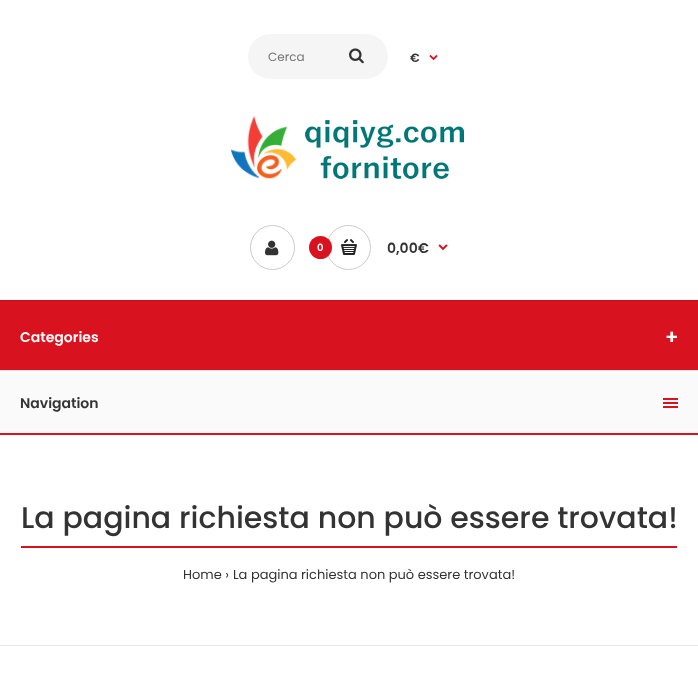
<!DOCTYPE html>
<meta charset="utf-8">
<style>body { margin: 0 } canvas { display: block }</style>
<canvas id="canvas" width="698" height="682"></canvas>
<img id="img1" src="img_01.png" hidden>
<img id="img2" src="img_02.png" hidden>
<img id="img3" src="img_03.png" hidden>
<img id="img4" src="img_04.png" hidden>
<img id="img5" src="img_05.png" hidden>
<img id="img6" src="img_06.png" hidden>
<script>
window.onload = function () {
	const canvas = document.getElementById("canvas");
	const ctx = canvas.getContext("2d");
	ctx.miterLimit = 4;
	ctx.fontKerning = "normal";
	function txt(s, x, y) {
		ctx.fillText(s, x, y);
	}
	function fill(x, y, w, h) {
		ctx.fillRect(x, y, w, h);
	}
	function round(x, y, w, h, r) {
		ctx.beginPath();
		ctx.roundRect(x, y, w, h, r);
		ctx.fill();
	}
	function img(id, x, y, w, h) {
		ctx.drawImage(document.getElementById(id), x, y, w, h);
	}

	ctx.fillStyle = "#FFFFFF";
	fill(0, 0, 698, 682);
	ctx.fillStyle = "#F5F5F5";
	round(248, 34, 140, 45, 22.5);
	img("img1", 349, 48, 15, 16);
	img("img2", 429, 55, 9, 6);
	img("img3", 231, 116, 233, 63);
	ctx.beginPath();
	ctx.arc(272.5, 247.5, 22, 0, Math.PI * 2);
	ctx.strokeStyle = "#CCCCCC";
	ctx.stroke();
	img("img4", 265, 240, 14, 16);
	ctx.beginPath();
	ctx.arc(348.5, 247.5, 22, 0, Math.PI * 2);
	ctx.stroke();
	ctx.fillStyle = "#D9121F";
	ctx.beginPath();
	ctx.arc(320.5, 247.5, 11.5, 0, Math.PI * 2);
	ctx.fill();
	img("img5", 341, 239, 16, 16);
	img("img6", 438, 244, 10, 7);
	fill(0, 433, 698, 2);
	fill(0, 301, 698, 69);
	ctx.fillStyle = "#C3101C";
	fill(0, 300, 698, 1);
	ctx.fillStyle = "#FAFAFA";
	fill(0, 371, 698, 62);
	ctx.fillStyle = "#E1E1E1";
	fill(0, 370, 698, 1);
	ctx.fillStyle = "#D9121F";
	fill(663, 398, 15, 2);
	fill(663, 402, 15, 2);
	fill(663, 406, 15, 2);
	ctx.fillStyle = "#E6E6E6";
	fill(0, 645, 698, 1);
	ctx.fillStyle = "#D9121F";
	fill(21, 546, 656, 2);
	ctx.font = "12px Poppins";
	ctx.fillStyle = "#757575";
	txt("Cerca", 268, 61);
	ctx.font = "600 12px Poppins";
	ctx.fillStyle = "#333333";
	txt("€", 410, 62);
	ctx.font = "600 10px Poppins";
	ctx.fillStyle = "#FFFFFF";
	txt("0", 317, 251);
	ctx.font = "600 14px Poppins";
	ctx.fillStyle = "#333333";
	txt("0,00€", 387, 253);
	ctx.fillStyle = "#FFFFFF";
	txt("Categories", 20, 342);
	ctx.font = "600 20px Poppins";
	txt("+", 665, 344);
	ctx.font = "600 14px Poppins";
	ctx.fillStyle = "#333333";
	txt("Navigation", 20, 408);
	ctx.font = "500 30px Poppins";
	txt("La pagina richiesta non può essere trovata!", 21, 528);
	ctx.font = "13px Poppins";
	txt("Home ›", 183, 579);
	txt("La pagina richiesta non può essere trovata!", 233, 579);
};
</script>
